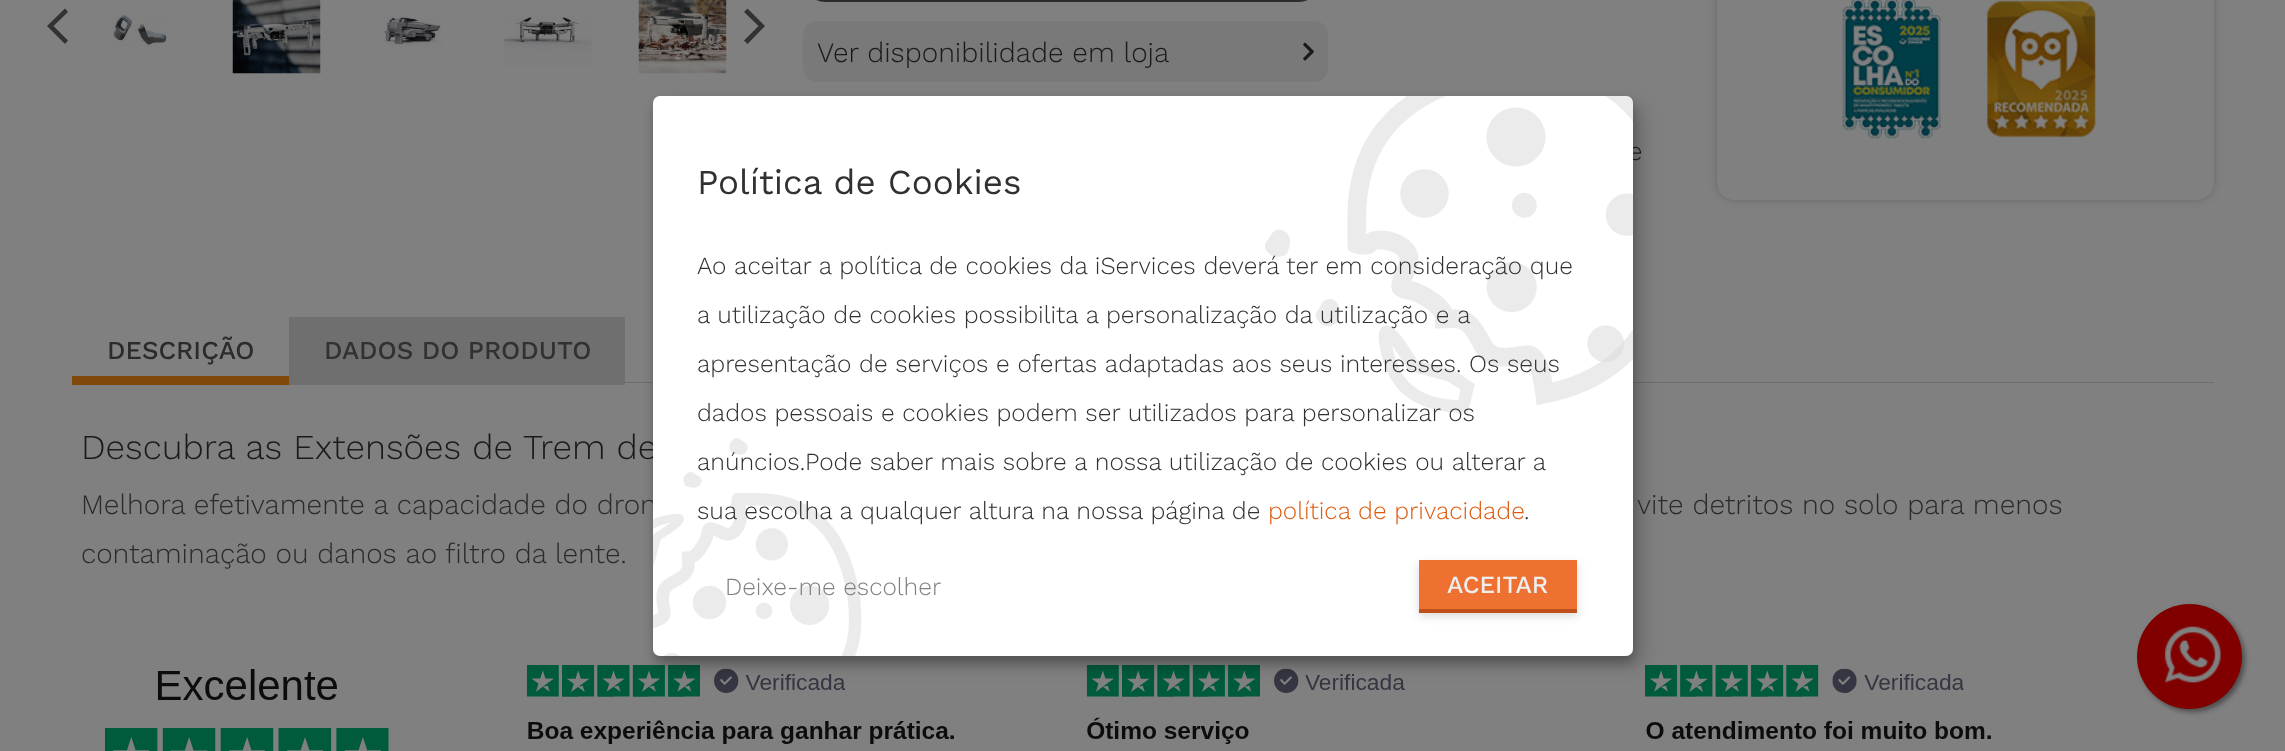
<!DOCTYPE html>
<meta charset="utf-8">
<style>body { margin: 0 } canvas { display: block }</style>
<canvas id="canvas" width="2285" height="751"></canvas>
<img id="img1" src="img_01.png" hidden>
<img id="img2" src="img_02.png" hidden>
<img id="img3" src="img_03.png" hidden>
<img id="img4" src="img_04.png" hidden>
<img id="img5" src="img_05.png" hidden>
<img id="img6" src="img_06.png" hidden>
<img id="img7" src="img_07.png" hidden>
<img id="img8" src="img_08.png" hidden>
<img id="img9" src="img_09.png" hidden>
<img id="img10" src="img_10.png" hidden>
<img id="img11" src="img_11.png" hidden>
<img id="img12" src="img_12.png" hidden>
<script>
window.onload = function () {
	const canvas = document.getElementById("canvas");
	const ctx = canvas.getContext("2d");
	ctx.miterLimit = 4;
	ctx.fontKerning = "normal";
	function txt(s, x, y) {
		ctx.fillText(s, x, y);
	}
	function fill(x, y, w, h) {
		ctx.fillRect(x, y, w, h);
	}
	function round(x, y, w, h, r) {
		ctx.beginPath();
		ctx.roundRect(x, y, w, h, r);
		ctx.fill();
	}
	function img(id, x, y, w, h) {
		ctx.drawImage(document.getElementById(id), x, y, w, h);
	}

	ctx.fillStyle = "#808080";
	fill(0, 0, 2285, 751);
	ctx.fillStyle = "#303234";
	ctx.beginPath();
	ctx.moveTo(65, 44);
	ctx.lineTo(47, 26);
	ctx.lineTo(65, 8.5);
	ctx.lineTo(68, 12);
	ctx.lineTo(53.5, 26);
	ctx.lineTo(68, 40.5);
	ctx.closePath();
	ctx.fill();
	img("img1", 113, 14, 54, 33);
	img("img2", 232, 0, 89, 74);
	img("img3", 384, 15, 58, 32);
	img("img4", 504, 15, 88, 51);
	img("img5", 638, 0, 89, 74);
	ctx.beginPath();
	ctx.moveTo(747.5, 44);
	ctx.lineTo(744, 40.5);
	ctx.lineTo(758.5, 26);
	ctx.lineTo(744, 12);
	ctx.lineTo(747.5, 8.5);
	ctx.lineTo(765, 26);
	ctx.closePath();
	ctx.fill();
	ctx.beginPath();
	ctx.roundRect(805, -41, 514, 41, 36.5);
	ctx.strokeStyle = "#2A2B2D";
	ctx.lineWidth = 4;
	ctx.stroke();
	ctx.fillStyle = "#797979";
	round(803, 21, 525, 61, 14);
	img("img6", 1303, 42, 11, 19);
	ctx.save();
	ctx.beginPath();
	ctx.moveTo(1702, 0);
	ctx.lineTo(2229, 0);
	ctx.lineTo(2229, 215);
	ctx.lineTo(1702, 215);
	ctx.closePath();
	ctx.moveTo(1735, -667);
	ctx.lineTo(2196, -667);
	ctx.bezierCurveTo(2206, -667, 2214, -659, 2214, -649);
	ctx.lineTo(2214, 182);
	ctx.bezierCurveTo(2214, 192, 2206, 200, 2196, 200);
	ctx.lineTo(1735, 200);
	ctx.bezierCurveTo(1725, 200, 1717, 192, 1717, 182);
	ctx.lineTo(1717, -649);
	ctx.bezierCurveTo(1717, -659, 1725, -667, 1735, -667);
	ctx.closePath();
	ctx.clip("evenodd");
	ctx.fillStyle = "rgba(0, 0, 0, 0.18)";
	ctx.filter = "blur(4.5px)";
	ctx.beginPath();
	ctx.roundRect(1717, -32, 497, 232, 18);
	ctx.fill();
	ctx.filter = "none";
	ctx.restore();
	img("img7", 1842, 0, 99, 139);
	img("img8", 1987, 0, 109, 138);
	ctx.fillStyle = "#6D6D6D";
	fill(625, 382, 1589, 1);
	ctx.fillStyle = "#80480B";
	fill(72, 376, 217, 9);
	ctx.fillStyle = "#6F6F6F";
	fill(289, 317, 336, 68);
	img("img9", 105, 665, 1886, 86);
	ctx.fillStyle = "#4D4D4D";
	ctx.filter = "blur(2.5px)";
	ctx.beginPath();
	ctx.roundRect(2140, 607, 105, 105, 52.5);
	ctx.fill();
	ctx.filter = "none";
	ctx.fillStyle = "#800000";
	ctx.beginPath();
	ctx.arc(2189.5, 656.5, 52.5, 0, Math.PI * 2);
	ctx.fill();
	img("img10", 2164, 626, 57, 57);
	ctx.fillStyle = "rgba(0, 0, 0, 0.19)";
	ctx.filter = "blur(9px)";
	ctx.beginPath();
	ctx.roundRect(662, 105, 980, 560, 7);
	ctx.fill();
	ctx.filter = "none";
	ctx.fillStyle = "rgba(0, 0, 0, 0.2)";
	ctx.filter = "blur(5px)";
	ctx.beginPath();
	ctx.roundRect(653, 103, 980, 560, 7);
	ctx.fill();
	ctx.filter = "none";
	ctx.font = "300 28px Work Sans";
	ctx.fillStyle = "#1A1A1A";
	txt("Ver disponibilidade em loja", 817, 62);
	ctx.font = "300 26px Work Sans";
	txt("e", 1628, 160);
	ctx.font = "500 25.75px Work Sans";
	ctx.fillStyle = "#2A2B2D";
	txt("DESCRIÇÃO", 107, 359);
	ctx.fillStyle = "#313131";
	txt("DADOS DO PRODUTO", 324, 359);
	ctx.font = "300 35px Work Sans";
	ctx.fillStyle = "#1A1A1A";
	txt("Descubra as Extensões de Trem de", 81, 459);
	ctx.font = "300 28px Work Sans";
	ctx.fillStyle = "#2A2B2D";
	txt("Melhora efetivamente a capacidade do dron", 81, 514);
	txt("vite detritos no solo para menos", 1637, 514);
	txt("contaminação ou danos ao filtro da lente.", 81, 563);
	ctx.fillStyle = "#FFFFFF";
	round(653, 96, 980, 560, 7);
	ctx.font = "35px Work Sans";
	ctx.fillStyle = "#313131";
	txt("Política de Cookies", 697, 194);
	img("img11", 1265, 96, 368, 317);
	ctx.font = "300 24.5px Work Sans";
	txt("Ao aceitar a política de cookies da iServices deverá ter em consideração que", 697, 274);
	txt("a utilização de cookies possibilita a personalização da utilização e a", 697, 323);
	txt("apresentação de serviços e ofertas adaptadas aos seus interesses. Os seus", 697, 372);
	txt("dados pessoais e cookies podem ser utilizados para personalizar os", 697, 421);
	img("img12", 653, 438, 209, 218);
	txt("anúncios.Pode saber mais sobre a nossa utilização de cookies ou alterar a", 697, 470);
	txt("sua escolha a qualquer altura na nossa página de", 697, 519);
	ctx.fillStyle = "#DD5B0D";
	txt("política de privacidade", 1268, 519);
	ctx.fillStyle = "#313131";
	txt(".", 1524, 519);
	ctx.fillStyle = "#808080";
	txt("Deixe-me escolher", 725, 595);
	ctx.fillStyle = "rgba(0, 0, 0, 0.15)";
	ctx.filter = "blur(5px)";
	ctx.beginPath();
	ctx.rect(1419, 564, 158, 52);
	ctx.fill();
	ctx.filter = "none";
	ctx.fillStyle = "#EF7132";
	fill(1419, 560, 158, 49);
	ctx.fillStyle = "#BF501A";
	fill(1419, 609, 158, 4);
	ctx.font = "500 24.5px Work Sans";
	ctx.fillStyle = "#EEEEEE";
	txt("ACEITAR", 1447, 593);
};
</script>
